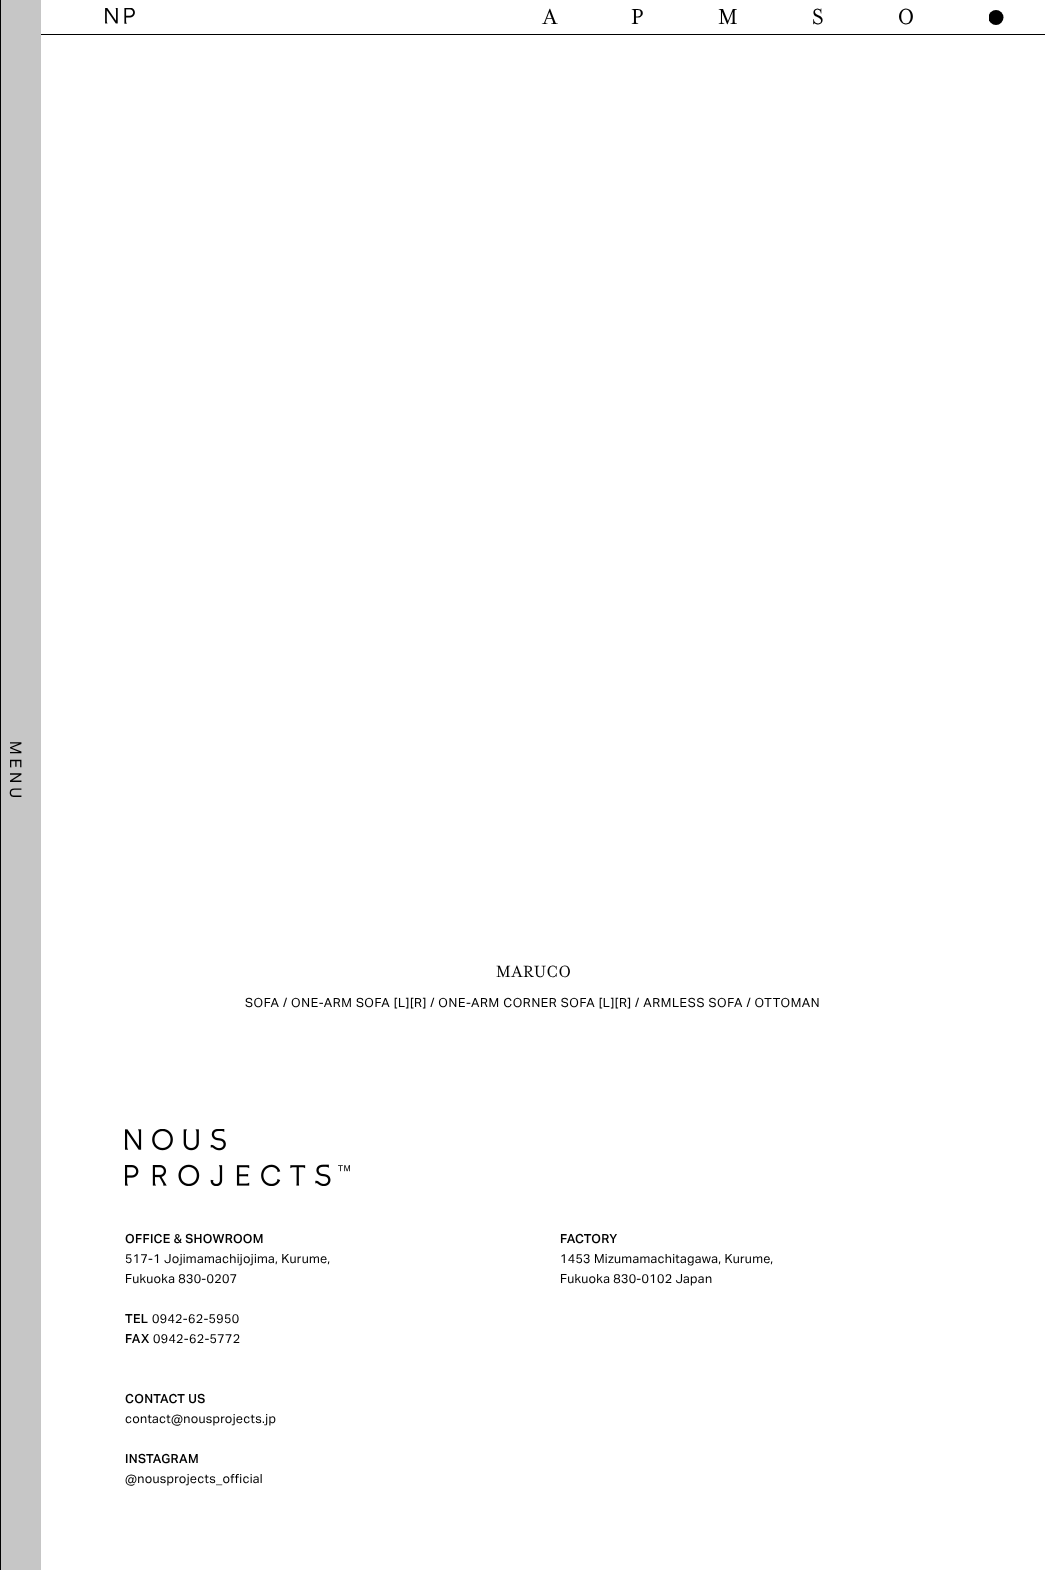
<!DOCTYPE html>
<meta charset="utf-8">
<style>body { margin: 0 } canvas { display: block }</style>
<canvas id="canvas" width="1045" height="1570"></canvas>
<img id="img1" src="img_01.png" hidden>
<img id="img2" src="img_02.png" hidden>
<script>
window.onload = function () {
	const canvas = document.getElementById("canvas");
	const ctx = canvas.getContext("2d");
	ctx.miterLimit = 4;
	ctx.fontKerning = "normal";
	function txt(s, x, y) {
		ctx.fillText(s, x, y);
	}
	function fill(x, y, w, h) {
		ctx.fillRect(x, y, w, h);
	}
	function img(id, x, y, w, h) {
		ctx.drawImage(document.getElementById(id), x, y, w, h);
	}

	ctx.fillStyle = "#FFFFFF";
	fill(0, 0, 1045, 1570);
	ctx.fillStyle = "#000000";
	fill(41, 34, 1004, 1);
	img("img1", 105, 8, 30, 16);
	ctx.save();
	ctx.beginPath();
	ctx.rect(989, 10, 15, 15);
	ctx.clip();
	ctx.beginPath();
	ctx.arc(996, 17.5, 7.5, 0, Math.PI * 2);
	ctx.fill();
	ctx.restore();
	ctx.fillStyle = "#C6C6C6";
	fill(1, 0, 40, 1570);
	ctx.fillStyle = "#000000";
	fill(0, 0, 1, 1570);
	img("img2", 125, 1129, 225, 57);
	ctx.letterSpacing = "1px";
	ctx.font = "25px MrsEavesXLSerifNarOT";
	txt("A", 543, 24);
	txt("P", 631, 24);
	txt("M", 718, 24);
	txt("S", 812, 24);
	txt("O", 898, 24);
	ctx.letterSpacing = "4px";
	ctx.font = "16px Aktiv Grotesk";
	ctx.save();
	ctx.translate(10, 741);
	ctx.rotate(90 * Math.PI / 180);
	ctx.fillText("MENU", 0, 0);
	ctx.restore();
	ctx.letterSpacing = "1px";
	ctx.font = "18.75px MrsEavesXLSerifNarOT";
	txt("MARUCO", 496, 977);
	ctx.letterSpacing = "0.62px";
	ctx.font = "12.5px Aktiv Grotesk";
	txt("SOFA / ONE-ARM SOFA [L][R] / ONE-ARM CORNER SOFA [L][R] / ARMLESS SOFA / OTTOMAN", 245, 1007);
	ctx.letterSpacing = "0.3px";
	ctx.font = "500 12.5px Aktiv Grotesk";
	txt("OFFICE & SHOWROOM", 125, 1243);
	ctx.font = "12.5px Aktiv Grotesk";
	txt("517-1 Jojimamachijojima, Kurume,", 125, 1263);
	txt("Fukuoka 830-0207", 125, 1283);
	ctx.font = "500 12.5px Aktiv Grotesk";
	txt("TEL", 125, 1323);
	ctx.font = "12.5px Aktiv Grotesk";
	txt("0942-62-5950", 152, 1323);
	ctx.font = "500 12.5px Aktiv Grotesk";
	txt("FAX", 125, 1343);
	ctx.font = "12.5px Aktiv Grotesk";
	txt("0942-62-5772", 153, 1343);
	ctx.font = "500 12.5px Aktiv Grotesk";
	txt("FACTORY", 560, 1243);
	ctx.font = "12.5px Aktiv Grotesk";
	txt("1453 Mizumamachitagawa, Kurume,", 560, 1263);
	txt("Fukuoka 830-0102 Japan", 560, 1283);
	ctx.font = "500 12.5px Aktiv Grotesk";
	txt("CONTACT US", 125, 1403);
	ctx.font = "12.5px Aktiv Grotesk";
	txt("contact@nousprojects.jp", 125, 1423);
	ctx.font = "500 12.5px Aktiv Grotesk";
	txt("INSTAGRAM", 125, 1463);
	ctx.font = "12.5px Aktiv Grotesk";
	txt("@nousprojects_official", 125, 1483);
};
</script>
